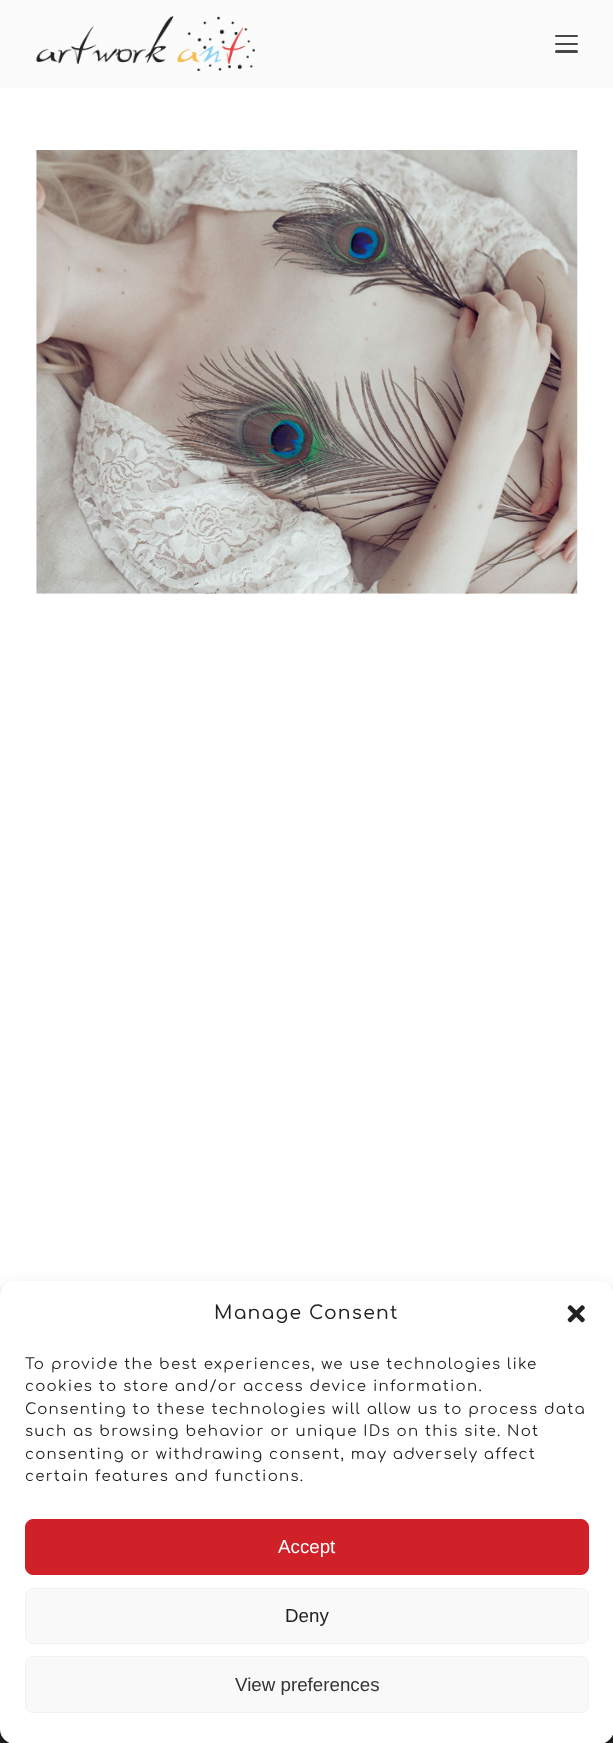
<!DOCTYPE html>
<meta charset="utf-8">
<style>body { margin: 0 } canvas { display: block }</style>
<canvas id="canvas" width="613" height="1743"></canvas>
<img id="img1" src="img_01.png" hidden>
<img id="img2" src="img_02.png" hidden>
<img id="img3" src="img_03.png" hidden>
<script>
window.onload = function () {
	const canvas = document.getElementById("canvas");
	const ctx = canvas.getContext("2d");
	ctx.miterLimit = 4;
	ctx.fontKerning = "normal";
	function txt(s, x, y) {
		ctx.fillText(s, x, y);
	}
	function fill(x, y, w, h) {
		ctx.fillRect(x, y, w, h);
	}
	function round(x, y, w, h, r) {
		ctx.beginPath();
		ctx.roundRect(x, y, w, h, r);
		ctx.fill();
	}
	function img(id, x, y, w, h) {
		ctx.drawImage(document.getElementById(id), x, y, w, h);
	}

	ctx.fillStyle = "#FFFFFF";
	fill(0, 0, 613, 1743);
	ctx.fillStyle = "#FBFBFC";
	fill(0, 0, 613, 88);
	img("img1", 36, 16, 219, 55);
	ctx.fillStyle = "#464646";
	round(555, 35, 23, 2, 1);
	round(555, 43, 23, 2, 1);
	round(555, 50, 23, 3, 1.5);
	img("img2", 36, 150, 542, 444);
	ctx.fillStyle = "#242525";
	fill(0, 1729, 613, 14);
	ctx.fillStyle = "rgba(0, 0, 0, 0.23)";
	ctx.filter = "blur(4px)";
	ctx.beginPath();
	ctx.roundRect(0, 1289, 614, 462, 15);
	ctx.fill();
	ctx.filter = "none";
	ctx.fillStyle = "rgba(0, 0, 0, 0.19)";
	ctx.filter = "blur(12.5px)";
	ctx.beginPath();
	ctx.roundRect(0, 1294, 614, 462, 15);
	ctx.fill();
	ctx.filter = "none";
	ctx.fillStyle = "#FFFFFF";
	round(0, 1281, 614, 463, 15);
	img("img3", 567, 1305, 18, 18);
	ctx.fillStyle = "#D02129";
	ctx.beginPath();
	ctx.roundRect(25.5, 1519.5, 563, 55, 7.5);
	ctx.fill();
	ctx.strokeStyle = "#D02129";
	ctx.stroke();
	ctx.fillStyle = "#F9F9F9";
	ctx.beginPath();
	ctx.roundRect(25.5, 1588.5, 563, 55, 7.5);
	ctx.fill();
	ctx.strokeStyle = "#F2F2F2";
	ctx.stroke();
	ctx.beginPath();
	ctx.roundRect(25.5, 1656.5, 563, 56, 7.5);
	ctx.fill();
	ctx.stroke();
	ctx.letterSpacing = "1.25px";
	ctx.font = "500 18.75px Comfortaa";
	ctx.fillStyle = "#222222";
	txt("Manage Consent", 214, 1319);
	ctx.font = "15px Comfortaa";
	txt("To provide the best experiences, we use technologies like", 25, 1369);
	txt("cookies to store and/or access device information.", 25, 1391);
	txt("Consenting to these technologies will allow us to process data", 25, 1414);
	txt("such as browsing behavior or unique IDs on this site. Not", 25, 1436);
	txt("consenting or withdrawing consent, may adversely affect", 25, 1459);
	txt("certain features and functions.", 25, 1481);
	ctx.letterSpacing = "0px";
	ctx.font = "18.75px Liberation Sans";
	ctx.fillStyle = "#FFFFFF";
	txt("Accept", 278, 1553);
	ctx.fillStyle = "#222222";
	txt("Deny", 285, 1622);
	ctx.fillStyle = "#333333";
	txt("View preferences", 235, 1691);
};
</script>
